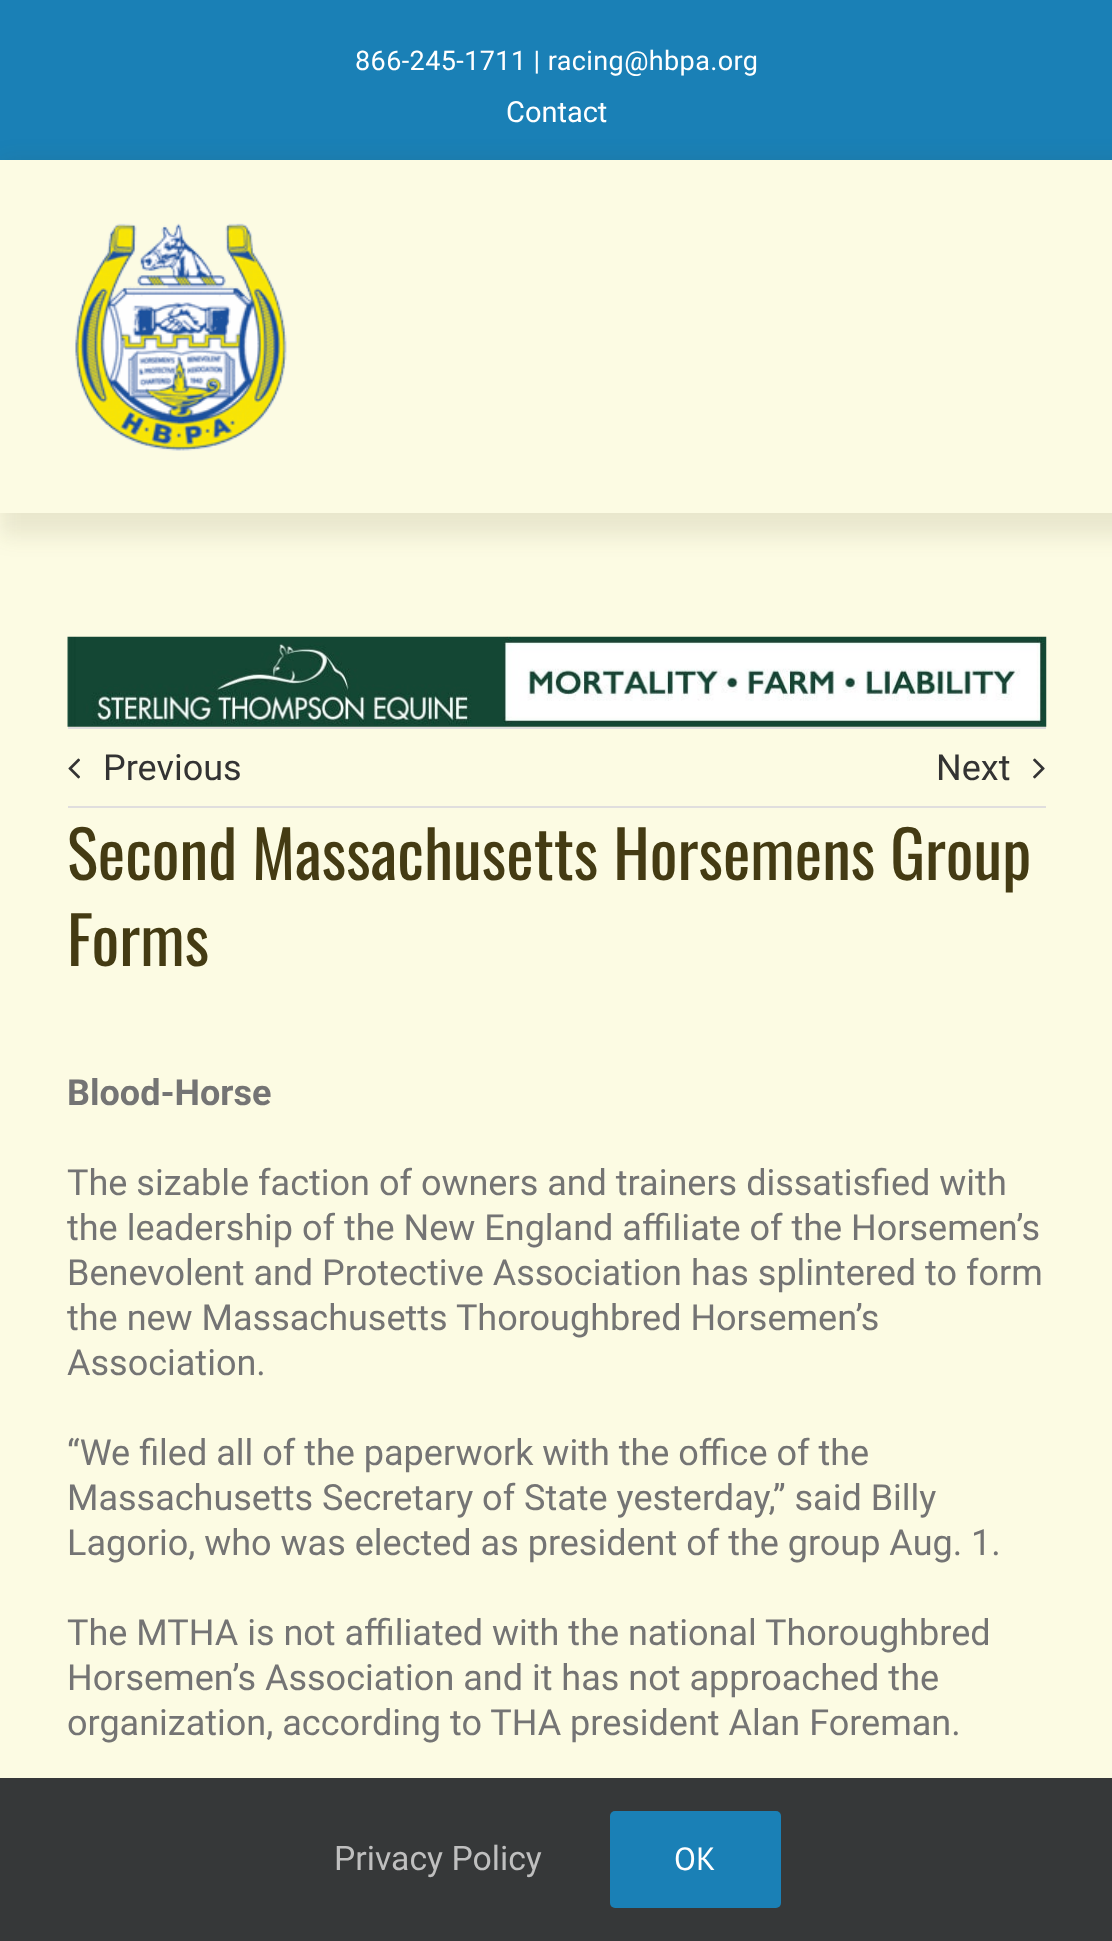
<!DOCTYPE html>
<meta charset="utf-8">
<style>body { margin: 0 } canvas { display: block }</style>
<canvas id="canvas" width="1112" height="1941"></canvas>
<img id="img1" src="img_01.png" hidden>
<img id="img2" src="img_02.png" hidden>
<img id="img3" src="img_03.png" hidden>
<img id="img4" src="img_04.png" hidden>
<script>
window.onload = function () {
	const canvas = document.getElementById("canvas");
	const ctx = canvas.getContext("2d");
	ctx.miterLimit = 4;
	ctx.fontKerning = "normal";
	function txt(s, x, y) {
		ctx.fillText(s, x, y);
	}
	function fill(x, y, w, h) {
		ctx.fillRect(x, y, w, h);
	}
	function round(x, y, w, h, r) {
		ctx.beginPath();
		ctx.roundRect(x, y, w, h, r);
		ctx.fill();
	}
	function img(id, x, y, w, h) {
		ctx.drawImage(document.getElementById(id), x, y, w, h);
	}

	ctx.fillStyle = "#FCFBE3";
	fill(0, 0, 1112, 1941);
	ctx.fillStyle = "#1A80B6";
	fill(0, 0, 1112, 160);
	ctx.save();
	ctx.beginPath();
	ctx.moveTo(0, 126);
	ctx.lineTo(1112, 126);
	ctx.lineTo(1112, 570);
	ctx.lineTo(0, 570);
	ctx.closePath();
	ctx.moveTo(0, 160);
	ctx.lineTo(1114, 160);
	ctx.lineTo(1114, 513);
	ctx.lineTo(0, 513);
	ctx.closePath();
	ctx.clip("evenodd");
	ctx.fillStyle = "rgba(68, 59, 19, 0.1)";
	ctx.filter = "blur(11px)";
	ctx.beginPath();
	ctx.rect(0, 160, 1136, 376);
	ctx.fill();
	ctx.filter = "none";
	ctx.restore();
	img("img1", 75, 223, 212, 228);
	img("img2", 67, 636, 980, 91);
	ctx.fillStyle = "#E0DEDE";
	fill(68, 727, 978, 2);
	fill(68, 806, 978, 2);
	img("img3", 68, 758, 12, 21);
	img("img4", 1033, 758, 12, 21);
	ctx.fillStyle = "#363839";
	fill(0, 1778, 1112, 163);
	ctx.fillStyle = "#1A80B6";
	round(610, 1811, 171, 97, 5);
	ctx.letterSpacing = "0.4px";
	ctx.font = "27px Roboto";
	ctx.fillStyle = "#FFFFFF";
	txt("866-245-1711 | racing@hbpa.org", 355, 70);
	ctx.letterSpacing = "0px";
	ctx.font = "29px Roboto";
	txt("Contact", 506, 122);
	ctx.font = "36px Roboto";
	ctx.fillStyle = "#333333";
	txt("Previous", 103, 780);
	txt("Next", 936, 780);
	ctx.font = "65.25px Oswald";
	ctx.fillStyle = "#443B13";
	txt("Second Massachusetts Horsemens Group", 67, 880);
	txt("Forms", 67, 966);
	ctx.font = "bold 36px Roboto";
	ctx.fillStyle = "#747474";
	txt("Blood-Horse", 67, 1105);
	ctx.font = "36px Roboto";
	txt("The sizable faction of owners and trainers dissatisfied with", 67, 1195);
	txt("the leadership of the New England affiliate of the Horsemen’s", 67, 1240);
	txt("Benevolent and Protective Association has splintered to form", 67, 1285);
	txt("the new Massachusetts Thoroughbred Horsemen’s", 67, 1330);
	txt("Association.", 67, 1375);
	txt("“We filed all of the paperwork with the office of the", 67, 1465);
	txt("Massachusetts Secretary of State yesterday,” said Billy", 67, 1510);
	txt("Lagorio, who was elected as president of the group Aug. 1.", 67, 1555);
	txt("The MTHA is not affiliated with the national Thoroughbred", 67, 1645);
	txt("Horsemen’s Association and it has not approached the", 67, 1690);
	txt("organization, according to THA president Alan Foreman.", 67, 1735);
	ctx.font = "33.75px Roboto";
	ctx.fillStyle = "#BFBFBF";
	txt("Privacy Policy", 334, 1870);
	ctx.font = "32px PT Sans";
	ctx.fillStyle = "#FFFFFF";
	txt("OK", 674, 1870);
};
</script>
